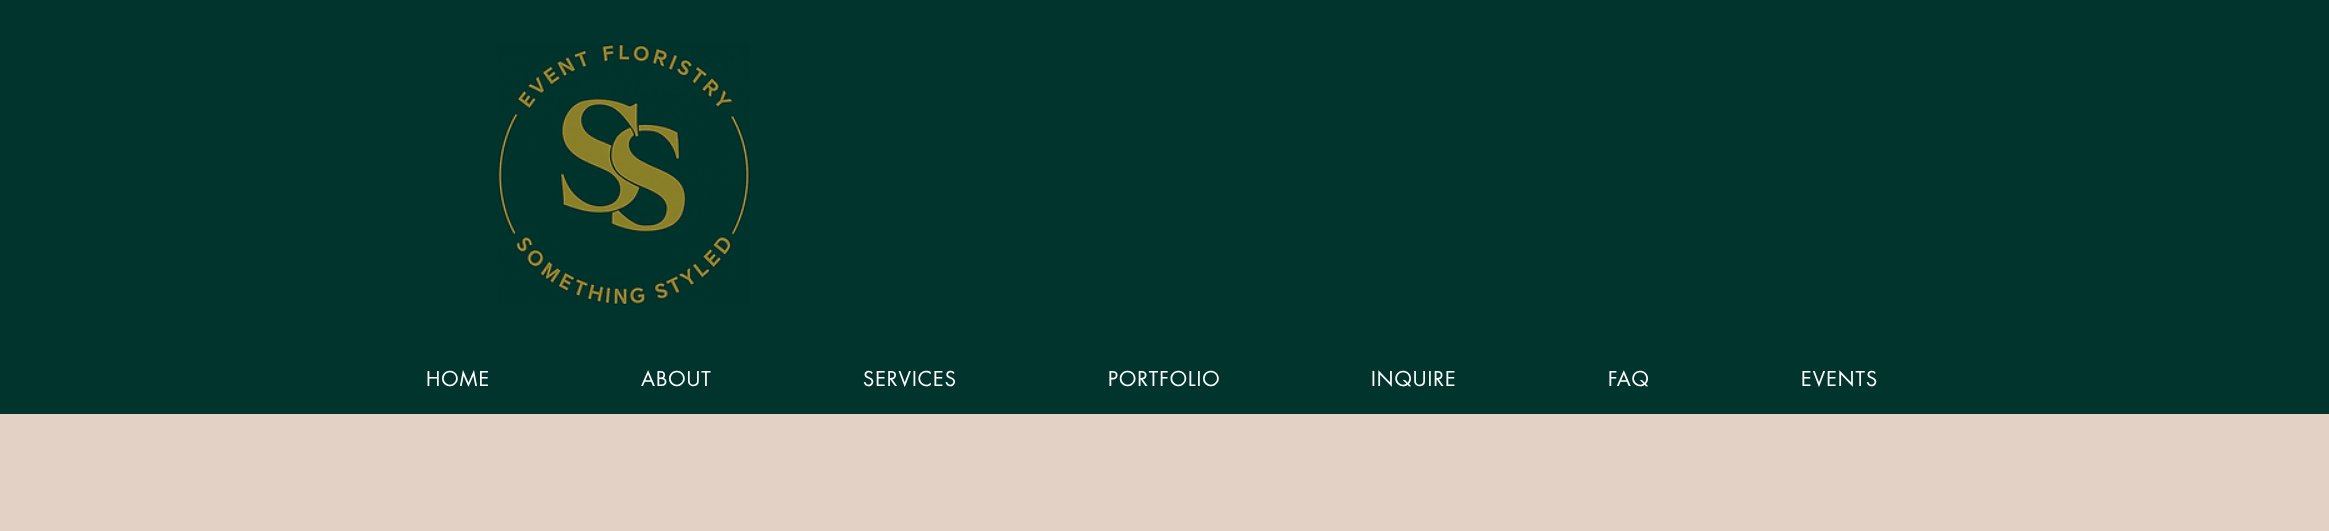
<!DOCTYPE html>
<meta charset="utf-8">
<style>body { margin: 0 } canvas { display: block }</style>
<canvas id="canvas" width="2329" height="531"></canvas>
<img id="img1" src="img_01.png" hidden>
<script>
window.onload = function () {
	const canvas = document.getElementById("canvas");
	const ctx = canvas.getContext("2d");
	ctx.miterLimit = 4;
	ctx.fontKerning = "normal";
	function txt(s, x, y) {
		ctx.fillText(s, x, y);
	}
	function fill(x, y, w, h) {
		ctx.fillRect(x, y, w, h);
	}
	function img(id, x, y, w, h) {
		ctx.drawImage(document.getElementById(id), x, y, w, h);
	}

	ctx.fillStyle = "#E4D1C6";
	fill(0, 0, 2329, 531);
	ctx.fillStyle = "#00342D";
	fill(0, 0, 2329, 414);
	img("img1", 497, 43, 253, 262);
	ctx.letterSpacing = "1px";
	ctx.font = "20px futura";
	ctx.fillStyle = "#FFFFFF";
	txt("HOME", 426, 386);
	txt("ABOUT", 641, 386);
	txt("SERVICES", 863, 386);
	txt("PORTFOLIO", 1108, 386);
	txt("INQUIRE", 1371, 386);
	txt("FAQ", 1608, 386);
	txt("EVENTS", 1801, 386);
};
</script>
